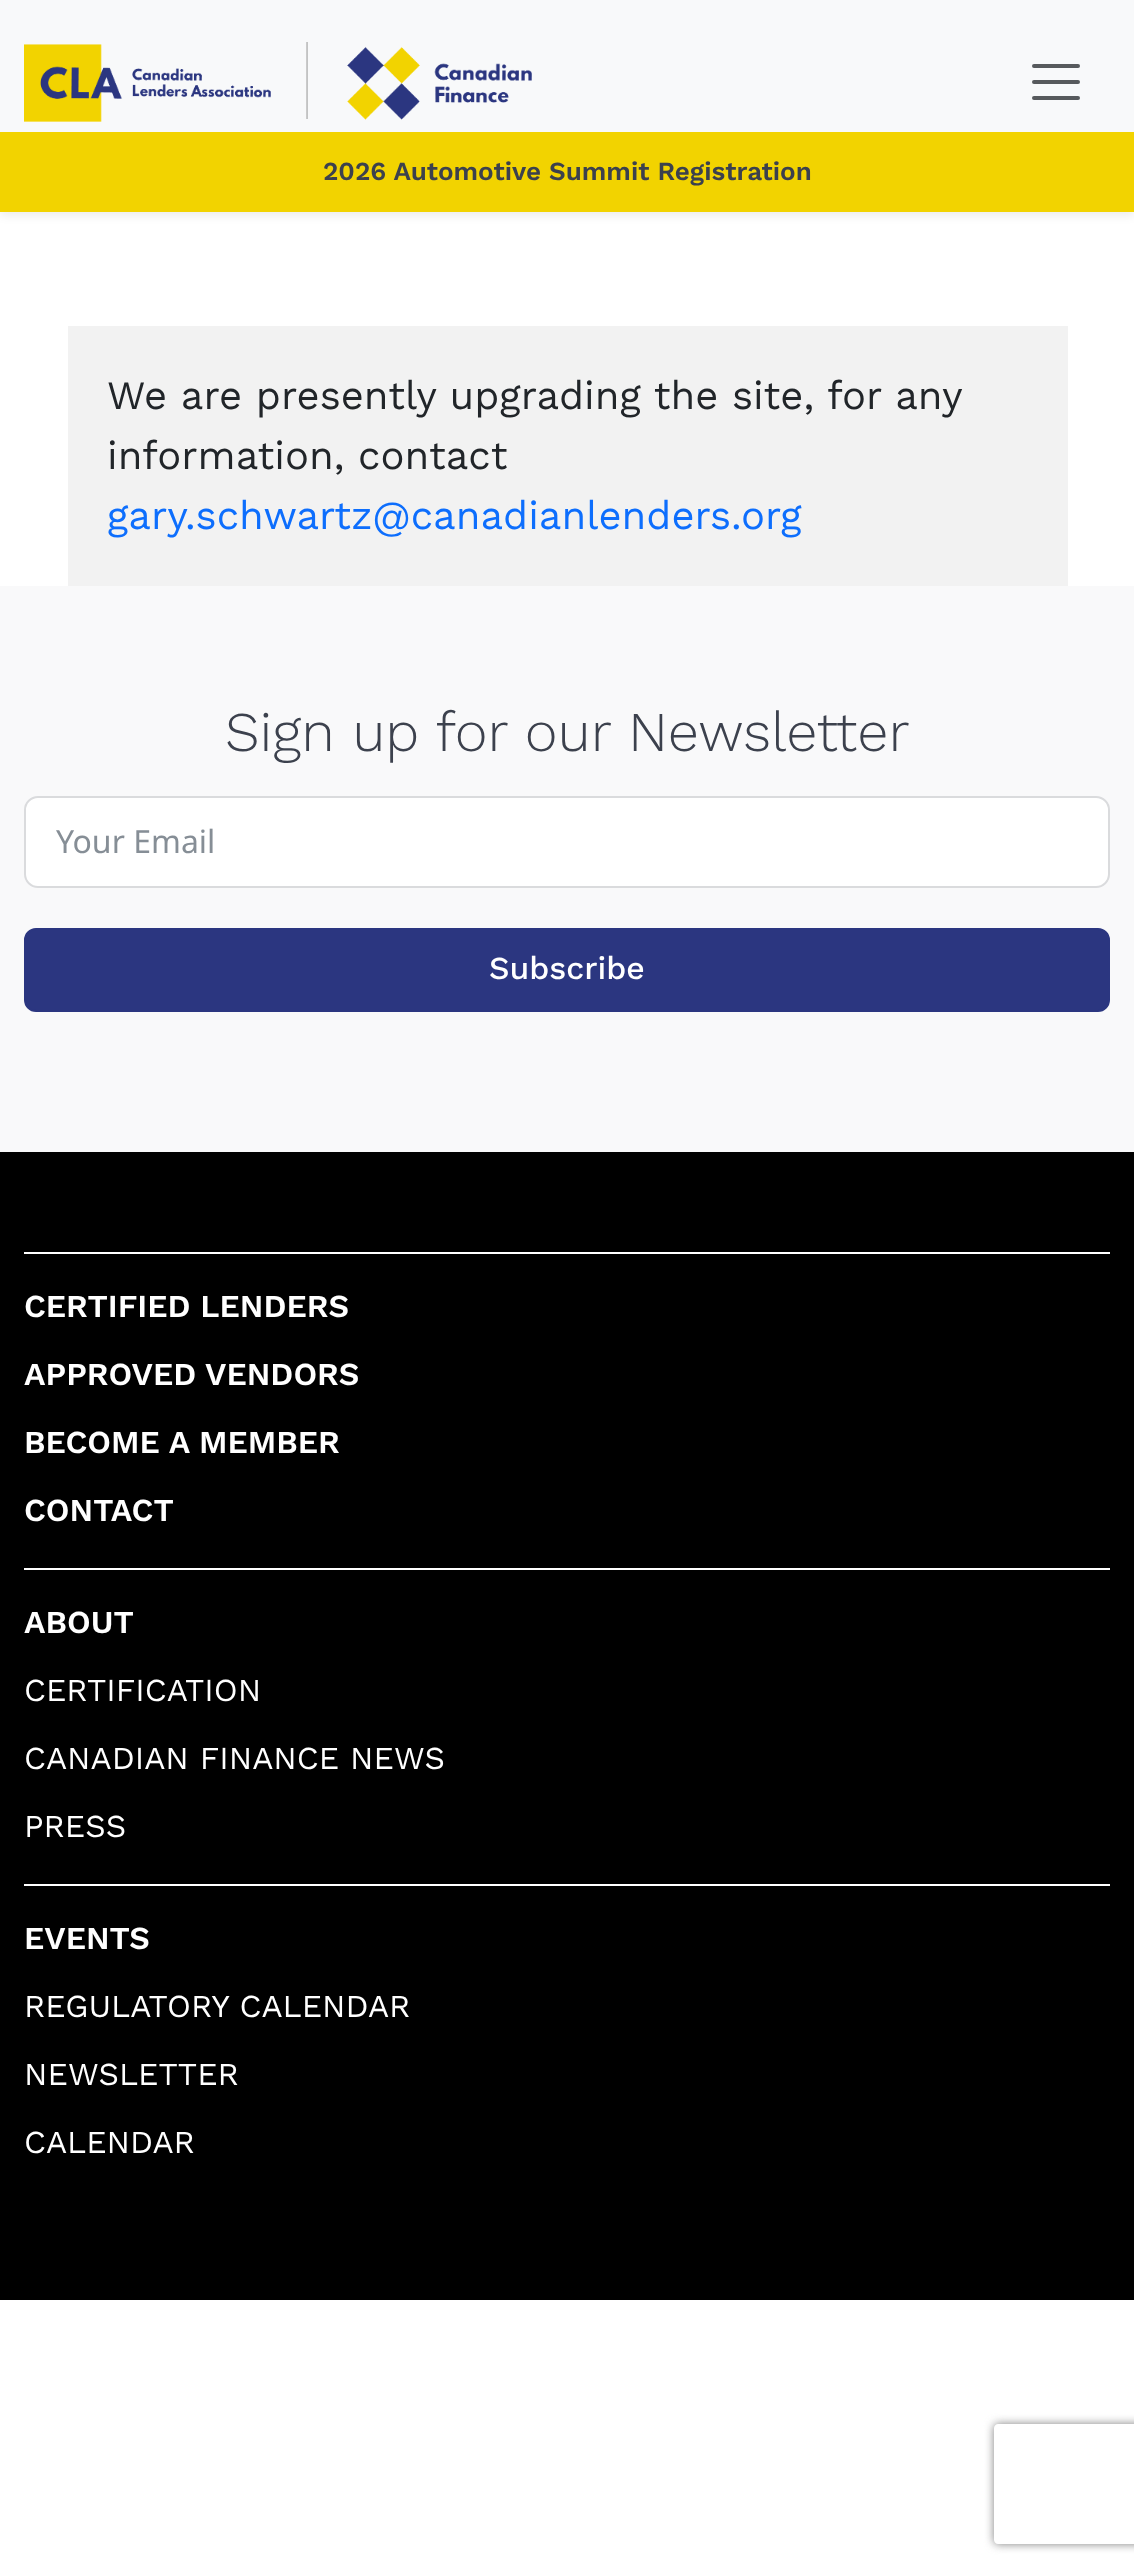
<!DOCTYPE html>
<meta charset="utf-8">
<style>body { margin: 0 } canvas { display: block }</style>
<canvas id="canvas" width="1134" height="2572"></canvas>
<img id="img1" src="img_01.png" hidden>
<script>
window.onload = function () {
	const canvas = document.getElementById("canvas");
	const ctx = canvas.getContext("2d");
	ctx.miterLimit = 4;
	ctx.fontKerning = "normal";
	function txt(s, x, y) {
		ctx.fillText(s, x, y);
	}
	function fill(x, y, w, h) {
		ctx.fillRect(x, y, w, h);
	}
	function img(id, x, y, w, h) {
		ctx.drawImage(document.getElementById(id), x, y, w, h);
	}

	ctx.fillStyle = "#FFFFFF";
	fill(0, 0, 1134, 2572);
	ctx.fillStyle = "rgba(0, 0, 0, 0.07)";
	ctx.filter = "blur(4px)";
	ctx.beginPath();
	ctx.rect(0, 4, 1134, 212);
	ctx.fill();
	ctx.filter = "none";
	ctx.fillStyle = "#F8F9FA";
	fill(0, 0, 1134, 132);
	img("img1", 24, 42, 508, 80);
	ctx.beginPath();
	ctx.moveTo(1034, 66);
	ctx.lineTo(1078, 66);
	ctx.moveTo(1034, 82);
	ctx.lineTo(1078, 82);
	ctx.moveTo(1034, 98);
	ctx.lineTo(1078, 98);
	ctx.strokeStyle = "#575A5D";
	ctx.lineWidth = 4;
	ctx.lineCap = "round";
	ctx.stroke();
	ctx.fillStyle = "#F2D300";
	fill(0, 132, 1134, 80);
	ctx.fillStyle = "#F2F2F2";
	fill(68, 326, 1000, 260);
	ctx.fillStyle = "#F9F9FA";
	fill(0, 586, 1134, 566);
	ctx.fillStyle = "#FFFFFF";
	ctx.beginPath();
	ctx.roundRect(25, 797, 1084, 90, 13);
	ctx.fill();
	ctx.strokeStyle = "#DADBDD";
	ctx.lineWidth = 2;
	ctx.stroke();
	ctx.fillStyle = "#2B3680";
	ctx.beginPath();
	ctx.roundRect(25, 929, 1084, 82, 11);
	ctx.fill();
	ctx.strokeStyle = "#2B3680";
	ctx.stroke();
	ctx.fillStyle = "#000000";
	fill(0, 1152, 1134, 1148);
	ctx.fillStyle = "#FFFFFF";
	fill(24, 1252, 1086, 2);
	fill(24, 1568, 1086, 2);
	fill(24, 1884, 1086, 2);
	ctx.save();
	ctx.beginPath();
	ctx.moveTo(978, 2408);
	ctx.lineTo(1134, 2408);
	ctx.lineTo(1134, 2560);
	ctx.lineTo(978, 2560);
	ctx.closePath();
	ctx.moveTo(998, 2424);
	ctx.lineTo(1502, 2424);
	ctx.bezierCurveTo(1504, 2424, 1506, 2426, 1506, 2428);
	ctx.lineTo(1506, 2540);
	ctx.bezierCurveTo(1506, 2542, 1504, 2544, 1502, 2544);
	ctx.lineTo(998, 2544);
	ctx.bezierCurveTo(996, 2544, 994, 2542, 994, 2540);
	ctx.lineTo(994, 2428);
	ctx.bezierCurveTo(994, 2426, 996, 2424, 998, 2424);
	ctx.closePath();
	ctx.clip("evenodd");
	ctx.fillStyle = "#808080";
	ctx.filter = "blur(5px)";
	ctx.beginPath();
	ctx.roundRect(994, 2424, 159, 120, 4);
	ctx.fill();
	ctx.filter = "none";
	ctx.restore();
	ctx.font = "600 26px Work Sans";
	ctx.fillStyle = "#3C414D";
	txt("2026 Automotive Summit Registration", 323, 180);
	ctx.font = "40px Work Sans";
	ctx.fillStyle = "#212529";
	txt("We are presently upgrading the site, for any", 107, 409);
	txt("information, contact", 107, 469);
	ctx.fillStyle = "#0D6EFD";
	txt("gary.schwartz@canadianlenders.org", 107, 529);
	ctx.font = "300 56px Work Sans";
	ctx.fillStyle = "#3C414D";
	txt("Sign up for our Newsletter", 225, 751);
	ctx.font = "32px Noto Sans";
	ctx.fillStyle = "#868E96";
	txt("Your Email", 56, 853);
	ctx.font = "500 32px Work Sans";
	ctx.fillStyle = "#FFFFFF";
	txt("Subscribe", 489, 979);
	ctx.font = "600 32px Work Sans";
	txt("CERTIFIED LENDERS", 24, 1317);
	txt("APPROVED VENDORS", 24, 1385);
	txt("BECOME A MEMBER", 24, 1453);
	txt("CONTACT", 24, 1521);
	txt("ABOUT", 24, 1633);
	ctx.font = "32px Work Sans";
	txt("CERTIFICATION", 24, 1701);
	txt("CANADIAN FINANCE NEWS", 24, 1769);
	txt("PRESS", 24, 1837);
	ctx.font = "600 32px Work Sans";
	txt("EVENTS", 24, 1949);
	ctx.font = "32px Work Sans";
	txt("REGULATORY CALENDAR", 24, 2017);
	txt("NEWSLETTER", 24, 2085);
	txt("CALENDAR", 24, 2153);
};
</script>
